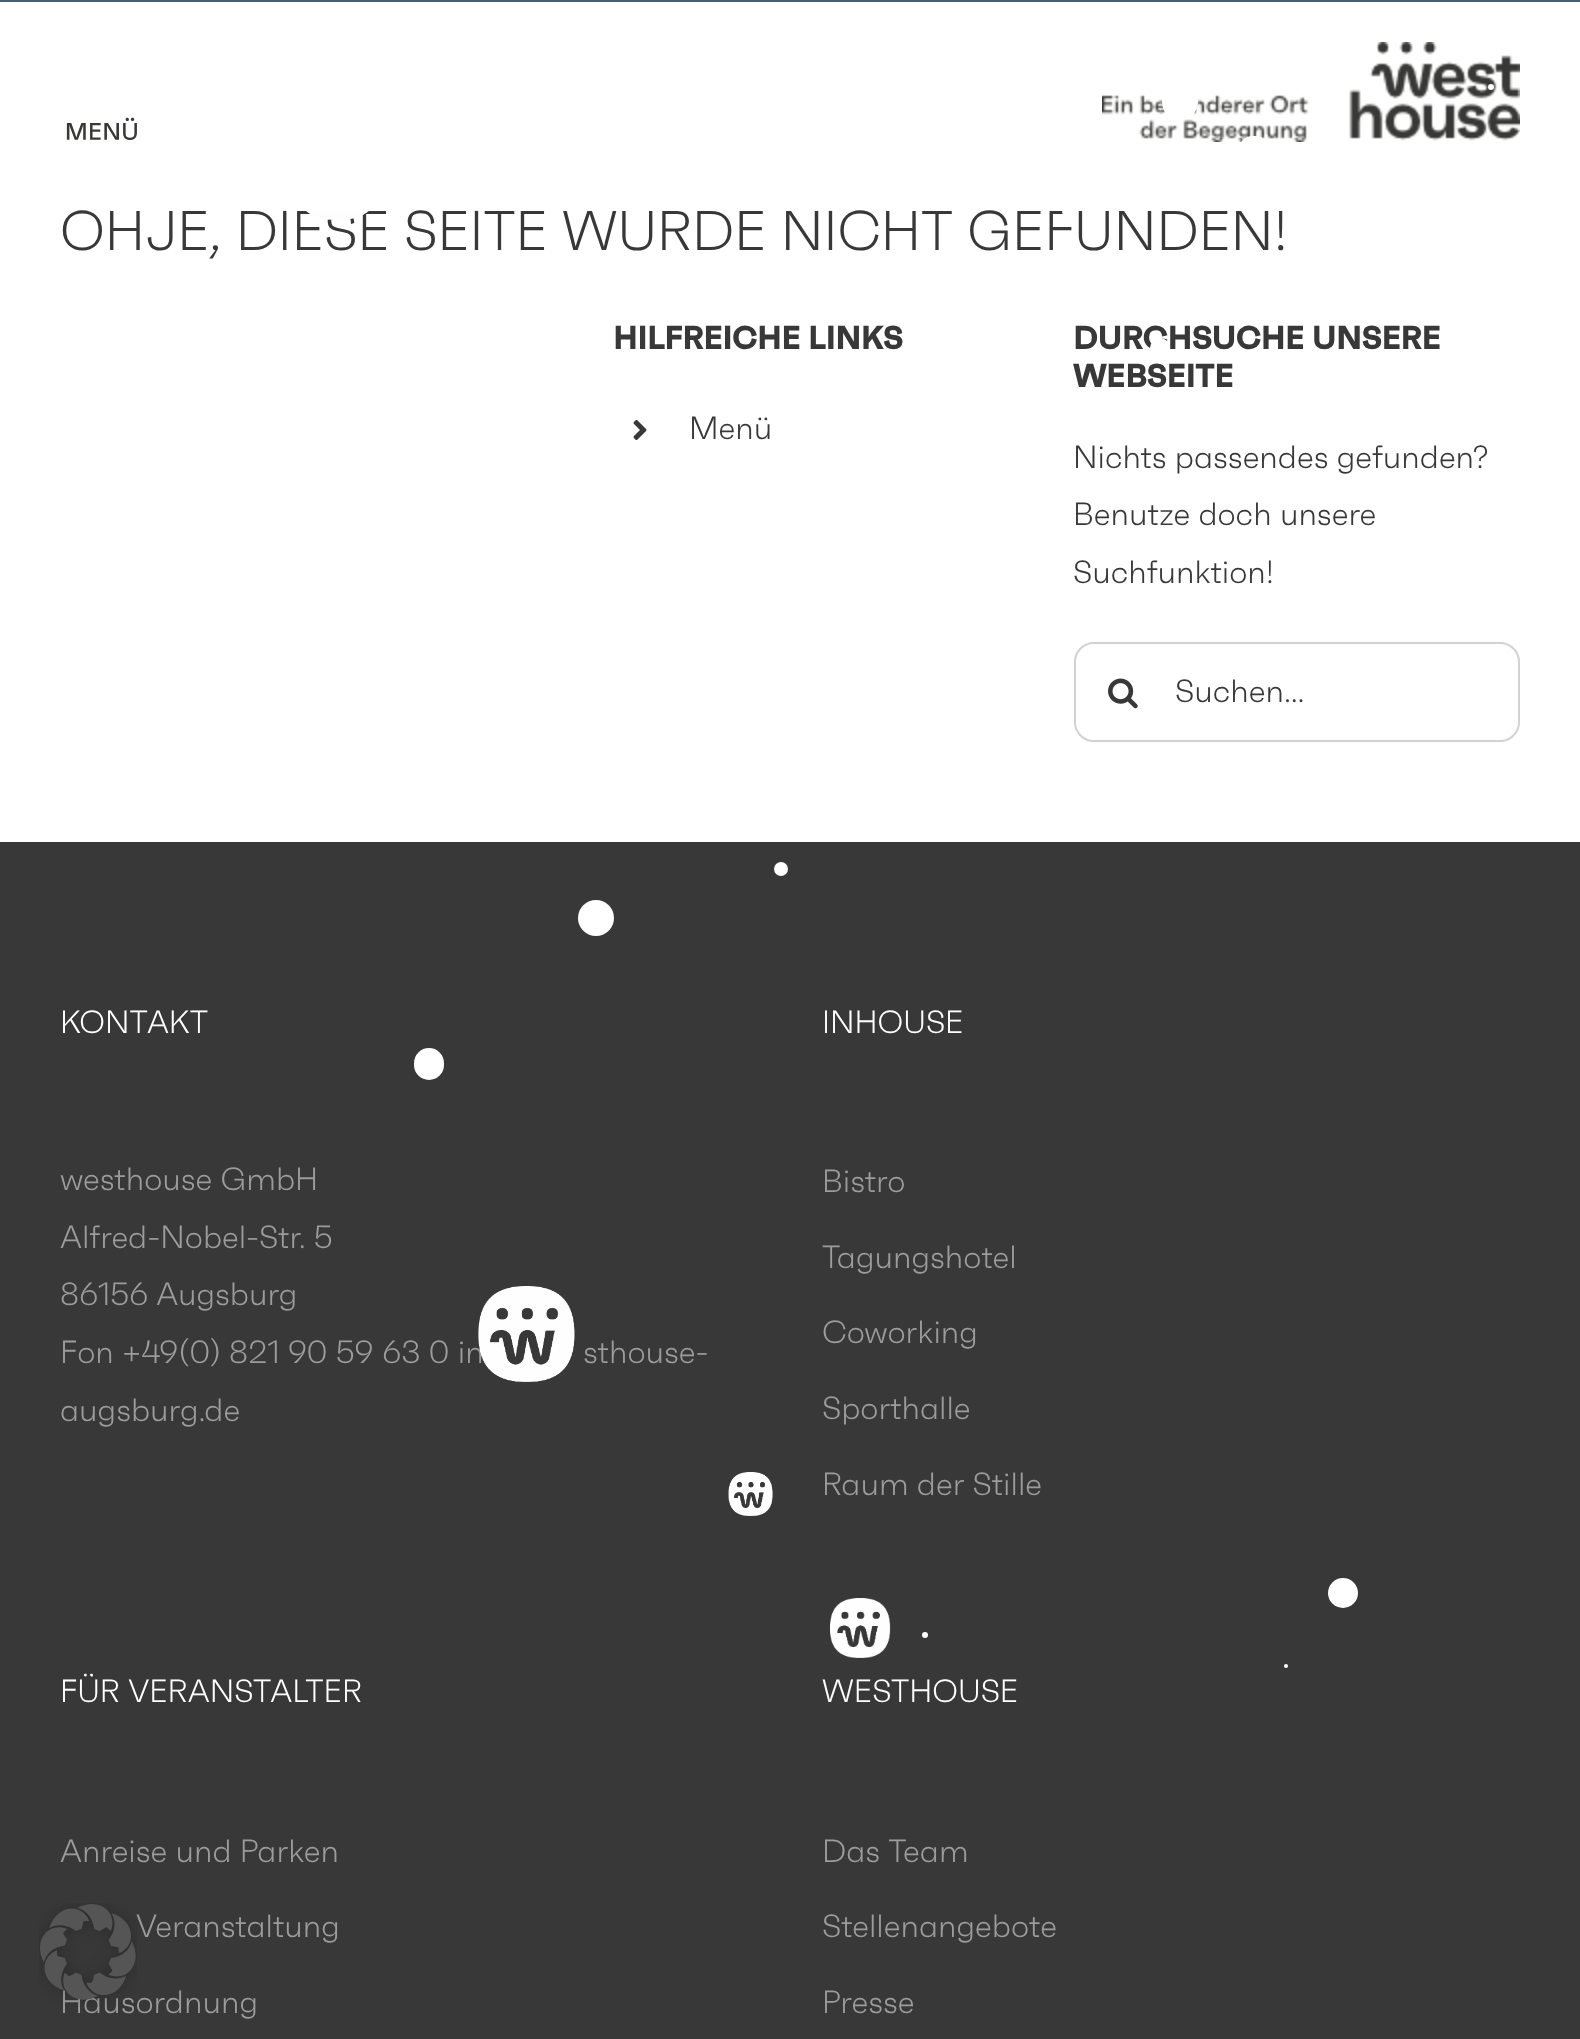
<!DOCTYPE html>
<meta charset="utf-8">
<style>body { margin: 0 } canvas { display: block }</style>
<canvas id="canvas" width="1580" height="2039"></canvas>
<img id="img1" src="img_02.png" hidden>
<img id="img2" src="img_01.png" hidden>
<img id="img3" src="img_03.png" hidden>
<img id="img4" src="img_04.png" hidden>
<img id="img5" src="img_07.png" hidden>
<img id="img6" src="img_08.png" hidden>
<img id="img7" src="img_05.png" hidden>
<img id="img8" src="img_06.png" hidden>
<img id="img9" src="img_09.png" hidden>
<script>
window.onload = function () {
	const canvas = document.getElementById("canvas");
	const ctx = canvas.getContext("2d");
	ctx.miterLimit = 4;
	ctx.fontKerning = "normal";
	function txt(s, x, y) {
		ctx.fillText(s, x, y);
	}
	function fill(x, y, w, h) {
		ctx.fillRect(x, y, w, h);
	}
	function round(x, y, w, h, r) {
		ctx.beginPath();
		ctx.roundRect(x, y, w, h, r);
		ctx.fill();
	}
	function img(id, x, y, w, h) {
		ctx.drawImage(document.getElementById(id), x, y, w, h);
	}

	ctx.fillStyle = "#FFFFFF";
	fill(0, 0, 1580, 2039);
	img("img1", 1102, 42, 418, 100);
	ctx.beginPath();
	ctx.arc(1180, 102, 18, 0, Math.PI * 2);
	ctx.fill();
	ctx.beginPath();
	ctx.arc(1491, 87, 3, 0, Math.PI * 2);
	ctx.fill();
	round(1238, 136, 32, 30, 15);
	ctx.fillStyle = "#435F70";
	fill(0, 0, 1580, 2);
	img("img2", 66, 117, 71, 23);
	img("img3", 633, 420, 14, 20);
	ctx.beginPath();
	ctx.roundRect(1075, 643, 444, 98, 19);
	ctx.strokeStyle = "#D2D2D2";
	ctx.lineWidth = 2;
	ctx.stroke();
	img("img4", 1108, 678, 30, 31);
	ctx.fillStyle = "#383838";
	fill(0, 842, 1580, 1197);
	ctx.fillStyle = "#FFFFFF";
	ctx.beginPath();
	ctx.arc(781, 869, 7, 0, Math.PI * 2);
	ctx.fill();
	ctx.beginPath();
	ctx.arc(596, 918, 18, 0, Math.PI * 2);
	ctx.fill();
	round(414, 1048, 30, 32, 15);
	img("img5", 728, 1472, 45, 44);
	ctx.beginPath();
	ctx.arc(1343, 1593, 15, 0, Math.PI * 2);
	ctx.fill();
	img("img6", 830, 1598, 61, 60);
	ctx.beginPath();
	ctx.arc(925, 1635, 3, 0, Math.PI * 2);
	ctx.fill();
	ctx.beginPath();
	ctx.arc(1286, 1666, 2, 0, Math.PI * 2);
	ctx.fill();
	ctx.font = "55.85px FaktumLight";
	ctx.fillStyle = "#383838";
	txt("OHJE, DIESE SEITE WURDE NICHT GEFUNDEN!", 60, 250);
	ctx.fillStyle = "#FFFFFF";
	round(1062, 204, 16, 14, 7);
	ctx.font = "bold 32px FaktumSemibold";
	ctx.fillStyle = "#383838";
	txt("HILFREICHE LINKS", 613, 349);
	ctx.font = "32px FaktumLight";
	txt("Menü", 689, 439);
	ctx.font = "bold 32px FaktumSemibold";
	txt("DURCHSUCHE UNSERE", 1073, 349);
	txt("WEBSEITE", 1073, 387);
	ctx.font = "32px FaktumLight";
	txt("Nichts passendes gefunden?", 1073, 468);
	txt("Benutze doch unsere", 1073, 525);
	txt("Suchfunktion!", 1073, 583);
	txt("Suchen...", 1175, 702);
	ctx.fillStyle = "#FFFFFF";
	txt("KONTAKT", 60, 1033);
	ctx.fillStyle = "#9C9C9C";
	txt("westhouse GmbH", 60, 1190);
	txt("Alfred-Nobel-Str. 5", 60, 1248);
	txt("86156 Augsburg", 60, 1305);
	txt("Fon +49(0) 821 90 59 63 0 in", 60, 1363);
	txt("sthouse-", 583, 1363);
	txt("augsburg.de", 60, 1421);
	ctx.fillStyle = "#FFFFFF";
	txt("INHOUSE", 822, 1033);
	ctx.fillStyle = "#9C9C9C";
	txt("Bistro", 822, 1192);
	txt("Tagungshotel", 822, 1268);
	txt("Coworking", 822, 1343);
	txt("Sporthalle", 822, 1419);
	txt("Raum der Stille", 822, 1495);
	ctx.fillStyle = "#FFFFFF";
	txt("FÜR VERANSTALTER", 60, 1702);
	ctx.fillStyle = "#9C9C9C";
	txt("Anreise und Parken", 60, 1862);
	txt("Veranstaltung", 136, 1937);
	txt("Hausordnung", 60, 2013);
	ctx.fillStyle = "#FFFFFF";
	txt("WESTHOUSE", 822, 1702);
	ctx.fillStyle = "#9C9C9C";
	txt("Das Team", 822, 1862);
	txt("Stellenangebote", 822, 1937);
	txt("Presse", 822, 2013);
	img("img7", 305, 210, 65, 10);
	ctx.fillStyle = "#FFFFFF";
	round(1150, 338, 20, 22, 10);
	img("img8", 478, 1286, 97, 96);
	img("img9", 39, 1903, 98, 104);
};
</script>
